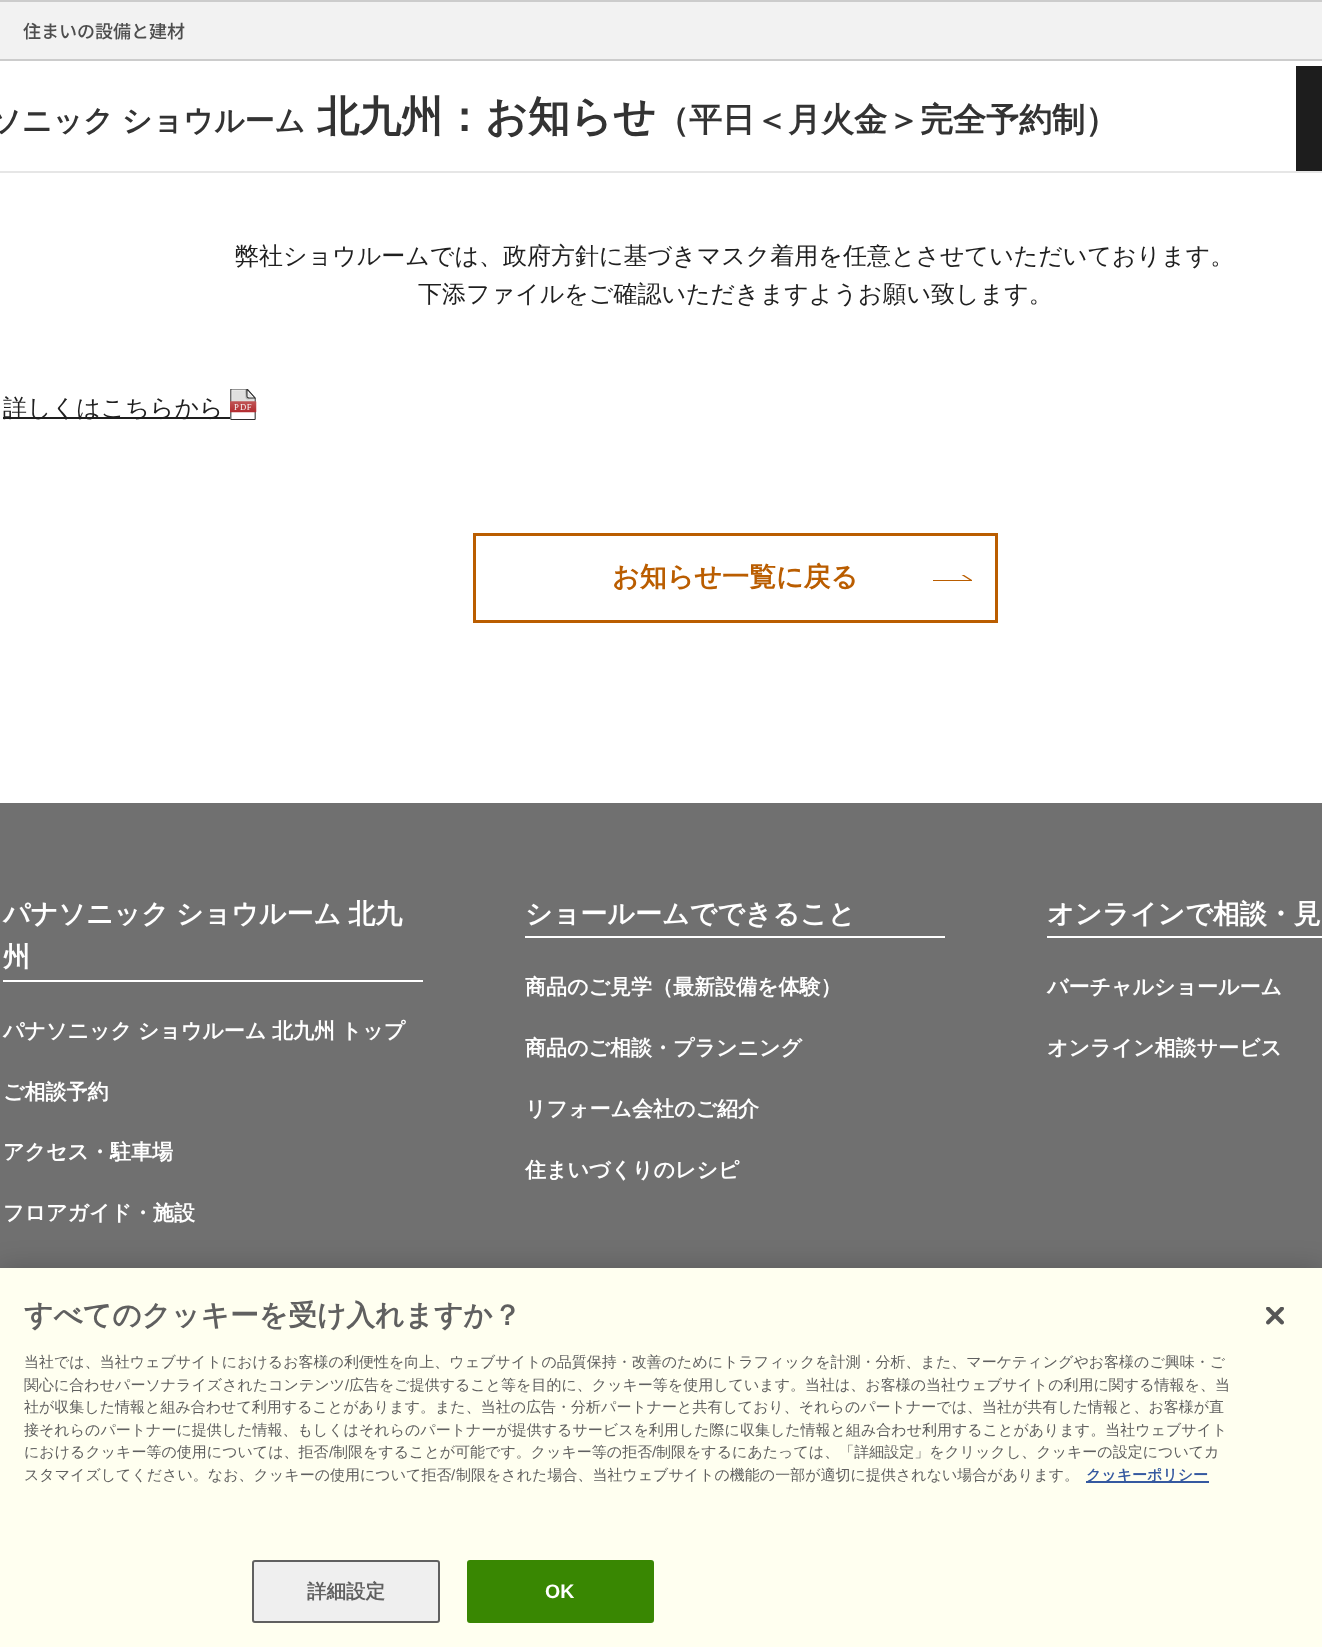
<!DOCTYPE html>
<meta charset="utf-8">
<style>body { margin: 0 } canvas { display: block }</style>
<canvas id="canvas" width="1322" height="1647"></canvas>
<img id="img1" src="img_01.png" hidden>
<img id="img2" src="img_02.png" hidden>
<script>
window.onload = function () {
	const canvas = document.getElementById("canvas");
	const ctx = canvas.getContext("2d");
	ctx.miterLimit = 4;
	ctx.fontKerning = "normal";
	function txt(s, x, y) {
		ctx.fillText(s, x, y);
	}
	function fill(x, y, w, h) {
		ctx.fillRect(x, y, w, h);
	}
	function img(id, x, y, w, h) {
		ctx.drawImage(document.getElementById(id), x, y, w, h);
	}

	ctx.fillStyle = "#FFFFFF";
	fill(0, 0, 1322, 1647);
	ctx.fillStyle = "#F2F2F2";
	fill(0, 2, 1322, 57);
	ctx.fillStyle = "#CCCCCC";
	fill(0, 0, 1322, 2);
	fill(0, 59, 1322, 2);
	ctx.fillStyle = "#E6E6E6";
	fill(0, 171, 1322, 2);
	ctx.fillStyle = "#1D1D1D";
	fill(1296, 66, 26, 105);
	ctx.fillStyle = "#1F1F1F";
	fill(3, 417, 227, 2);
	img("img1", 230, 389, 27, 31);
	ctx.strokeStyle = "#BA5D00";
	ctx.lineWidth = 3;
	ctx.strokeRect(474.5, 534.5, 522, 87);
	ctx.save();
	ctx.beginPath();
	ctx.rect(933, 575, 39, 6);
	ctx.clip();
	ctx.fillStyle = "#BA5D00";
	ctx.beginPath();
	ctx.moveTo(933, 581);
	ctx.lineTo(933, 580);
	ctx.lineTo(969.5, 580);
	ctx.lineTo(960, 574);
	ctx.lineTo(962.5, 574);
	ctx.lineTo(972, 580);
	ctx.lineTo(972, 581);
	ctx.closePath();
	ctx.fill("evenodd");
	ctx.restore();
	ctx.fillStyle = "#707070";
	fill(0, 803, 1322, 465);
	ctx.fillStyle = "#FFFFFF";
	fill(3, 980, 420, 2);
	fill(525, 936, 420, 2);
	fill(1047, 936, 275, 2);
	ctx.fillStyle = "rgba(0, 0, 0, 0.2)";
	ctx.filter = "blur(13.5px)";
	ctx.beginPath();
	ctx.rect(0, 1268, 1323, 379);
	ctx.fill();
	ctx.filter = "none";
	ctx.fillStyle = "#FFFFF0";
	fill(0, 1268, 1322, 379);
	ctx.fillStyle = "#3559A0";
	fill(1086, 1481, 123, 2);
	ctx.fillStyle = "#EFEFEF";
	ctx.beginPath();
	ctx.roundRect(253, 1561, 186, 61, 2);
	ctx.fill();
	ctx.strokeStyle = "#606060";
	ctx.lineWidth = 2;
	ctx.stroke();
	ctx.fillStyle = "#398702";
	ctx.beginPath();
	ctx.roundRect(468, 1561, 185, 61, 2);
	ctx.fill();
	ctx.strokeStyle = "#398702";
	ctx.stroke();
	img("img2", 1266, 1307, 18, 18);
	ctx.font = "500 18px Noto Sans JP";
	ctx.fillStyle = "#4D4D4D";
	txt("住まいの設備と建材", 23, 38);
	ctx.wordSpacing = "-1px";
	ctx.font = "bold 30px WenQuanYi Zen Hei";
	ctx.fillStyle = "#333333";
	txt("ソニック ショウルーム", -9, 131);
	ctx.wordSpacing = "0px";
	ctx.font = "bold 42px WenQuanYi Zen Hei";
	txt("北九州：お知らせ", 317, 131);
	ctx.font = "bold 33px WenQuanYi Zen Hei";
	txt("（平日＜月火金＞完全予約制）", 656, 131);
	ctx.font = "500 24px WenQuanYi Zen Hei";
	ctx.fillStyle = "#1F1F1F";
	txt("弊社ショウルームでは、政府方針に基づきマスク着用を任意とさせていただいております。", 235, 264);
	txt("下添ファイルをご確認いただきますようお願い致します。", 418, 302);
	txt("詳しくはこちらから", 3, 416);
	ctx.font = "bold 27px WenQuanYi Zen Hei";
	ctx.fillStyle = "#BA5D00";
	txt("お知らせ一覧に戻る", 612, 586);
	ctx.wordSpacing = "-1px";
	ctx.fillStyle = "#FFFFFF";
	txt("パナソニック ショウルーム 北九", 3, 923);
	ctx.wordSpacing = "0px";
	txt("州", 3, 966);
	ctx.wordSpacing = "-0.5px";
	ctx.font = "bold 21px WenQuanYi Zen Hei";
	txt("パナソニック ショウルーム 北九州 トップ", 3, 1038);
	ctx.wordSpacing = "0px";
	txt("ご相談予約", 3, 1099);
	txt("アクセス・駐車場", 3, 1159);
	txt("フロアガイド・施設", 3, 1220);
	ctx.font = "bold 27px WenQuanYi Zen Hei";
	txt("ショールームでできること", 525, 923);
	ctx.font = "bold 21px WenQuanYi Zen Hei";
	txt("商品のご見学（最新設備を体験）", 525, 994);
	txt("商品のご相談・プランニング", 525, 1055);
	txt("リフォーム会社のご紹介", 525, 1116);
	txt("住まいづくりのレシピ", 525, 1177);
	ctx.font = "bold 27px WenQuanYi Zen Hei";
	txt("オンラインで相談・見", 1047, 923);
	ctx.font = "bold 21px WenQuanYi Zen Hei";
	txt("バーチャルショールーム", 1047, 994);
	txt("オンライン相談サービス", 1047, 1055);
	ctx.font = "bold 28.75px WenQuanYi Zen Hei";
	ctx.fillStyle = "#606060";
	txt("すべてのクッキーを受け入れますか？", 24, 1325);
	ctx.font = "500 15px WenQuanYi Zen Hei";
	txt("当社では、当社ウェブサイトにおけるお客様の利便性を向上、ウェブサイトの品質保持・改善のためにトラフィックを計測・分析、また、マーケティングやお客様のご興味・ご", 24, 1367);
	txt("関心に合わせパーソナライズされたコンテンツ", 24, 1390);
	ctx.font = "15px Liberation Sans";
	txt("/", 345, 1390);
	ctx.font = "500 15px WenQuanYi Zen Hei";
	txt("広告をご提供すること等を目的に、クッキー等を使用しています。当社は、お客様の当社ウェブサイトの利用に関する情報を、当", 349, 1390);
	txt("社が収集した情報と組み合わせて利用することがあります。また、当社の広告・分析パートナーと共有しており、それらのパートナーでは、当社が共有した情報と、お客様が直", 24, 1412);
	txt("接それらのパートナーに提供した情報、もしくはそれらのパートナーが提供するサービスを利用した際に収集した情報と組み合わせ利用することがあります。当社ウェブサイト", 24, 1435);
	txt("におけるクッキー等の使用については、拒否", 24, 1457);
	ctx.font = "15px Liberation Sans";
	txt("/", 329, 1457);
	ctx.font = "500 15px WenQuanYi Zen Hei";
	txt("制限をすることが可能です。クッキー等の拒否", 333, 1457);
	ctx.font = "15px Liberation Sans";
	txt("/", 652, 1457);
	ctx.font = "500 15px WenQuanYi Zen Hei";
	txt("制限をするにあたっては、「詳細設定」をクリックし、クッキーの設定についてカ", 656, 1457);
	txt("スタマイズしてください。なお、クッキーの使用について拒否", 24, 1480);
	ctx.font = "15px Liberation Sans";
	txt("/", 451, 1480);
	ctx.font = "500 15px WenQuanYi Zen Hei";
	txt("制限をされた場合、当社ウェブサイトの機能の一部が適切に提供されない場合があります。", 456, 1480);
	ctx.font = "bold 15px WenQuanYi Zen Hei";
	ctx.fillStyle = "#3559A0";
	txt("クッキーポリシー", 1086, 1480);
	ctx.font = "bold 19.5px WenQuanYi Zen Hei";
	ctx.fillStyle = "#606060";
	txt("詳細設定", 307, 1598);
	ctx.font = "bold 19.5px Liberation Sans";
	ctx.fillStyle = "#FFFFFF";
	txt("OK", 545, 1598);
};
</script>
